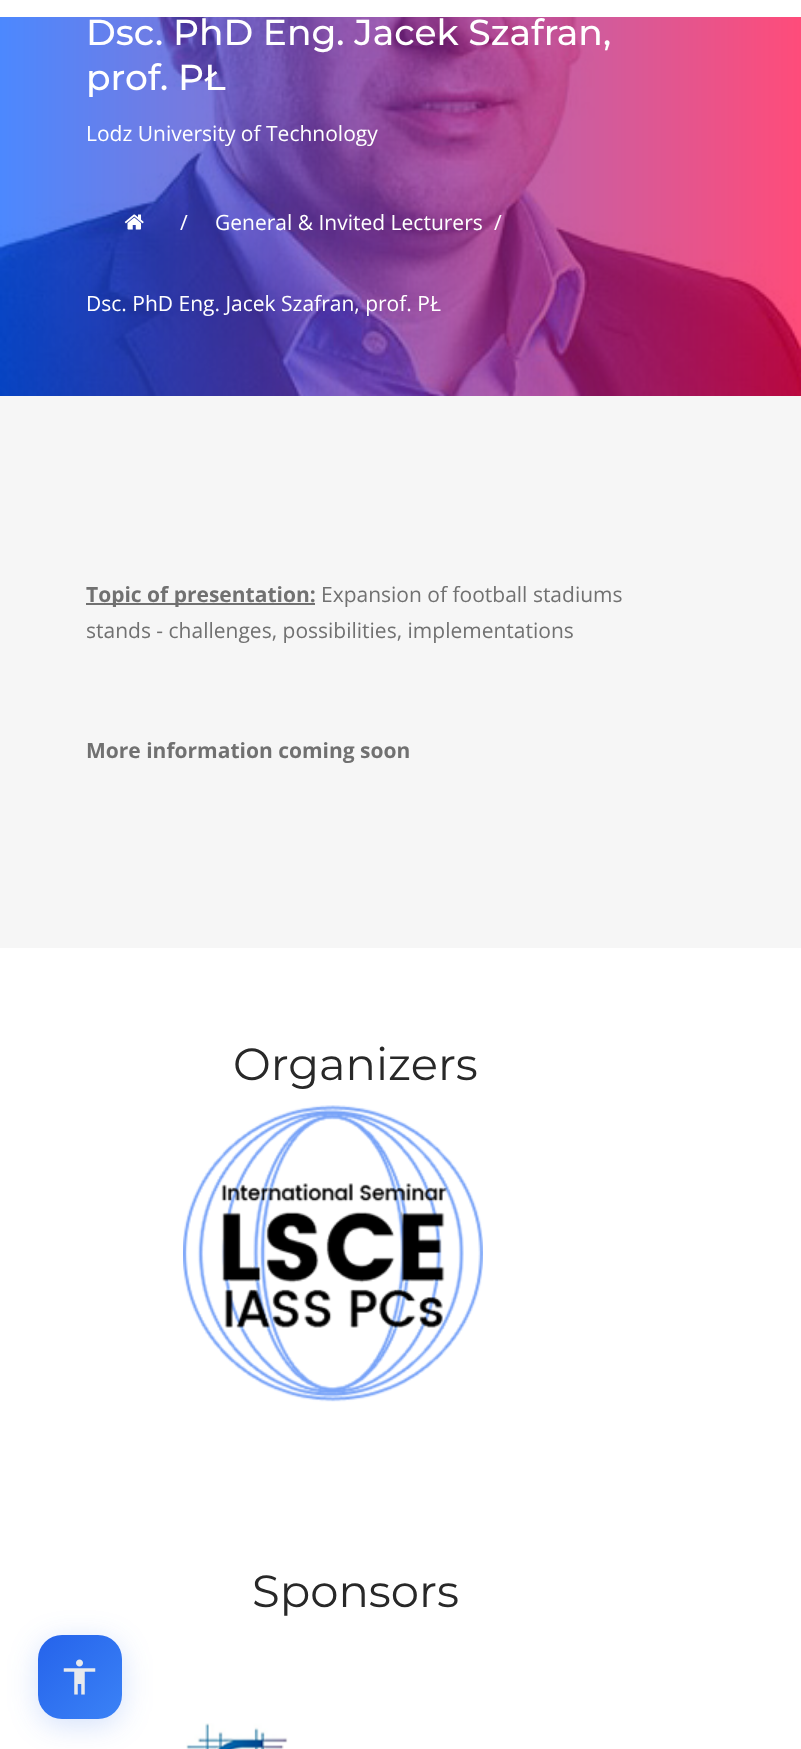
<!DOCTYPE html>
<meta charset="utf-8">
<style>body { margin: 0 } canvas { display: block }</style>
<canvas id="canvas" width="801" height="1749"></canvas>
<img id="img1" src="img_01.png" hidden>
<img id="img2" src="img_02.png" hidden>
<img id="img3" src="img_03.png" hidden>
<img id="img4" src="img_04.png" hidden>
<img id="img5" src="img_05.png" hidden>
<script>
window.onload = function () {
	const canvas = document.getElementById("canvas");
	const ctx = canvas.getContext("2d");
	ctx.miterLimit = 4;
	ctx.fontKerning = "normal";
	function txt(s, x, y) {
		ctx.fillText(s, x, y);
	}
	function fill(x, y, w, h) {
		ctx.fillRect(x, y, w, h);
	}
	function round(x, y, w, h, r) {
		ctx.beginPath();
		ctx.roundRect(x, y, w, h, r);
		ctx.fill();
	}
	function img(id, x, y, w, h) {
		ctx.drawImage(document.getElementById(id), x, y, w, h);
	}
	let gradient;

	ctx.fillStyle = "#FFFFFF";
	fill(0, 0, 801, 1749);
	img("img1", 0, 17, 801, 379);
	img("img2", 124, 214, 20, 16);
	ctx.fillStyle = "#F6F6F6";
	fill(0, 396, 801, 552);
	ctx.fillStyle = "#717171";
	fill(86, 603, 229, 2);
	img("img3", 183, 1105, 300, 297);
	img("img4", 186, 1723, 102, 26);
	ctx.fillStyle = "rgba(37, 99, 235, 0.2)";
	ctx.filter = "blur(15px)";
	ctx.beginPath();
	ctx.roundRect(38, 1641, 84, 84, 24);
	ctx.fill();
	ctx.filter = "none";
	gradient = ctx.createLinearGradient(38, 1635, 122, 1719);
	gradient.addColorStop(0, "#2563EB");
	gradient.addColorStop(1, "#3B82F6");
	ctx.fillStyle = gradient;
	round(38, 1635, 84, 84, 24);
	img("img5", 63, 1659, 33, 36);
	ctx.font = "500 36px Montserrat";
	ctx.fillStyle = "#FFFFFF";
	txt("Dsc. PhD Eng. Jacek Szafran,", 86, 45);
	txt("prof. PŁ", 86, 90);
	ctx.font = "21px Open Sans";
	txt("Lodz University of Technology", 86, 141);
	txt("/", 180, 230);
	txt("General & Invited Lecturers", 215, 230);
	txt("/", 494, 230);
	txt("Dsc. PhD Eng. Jacek Szafran, prof. PŁ", 86, 311);
	ctx.font = "bold 21px Open Sans";
	ctx.fillStyle = "#717171";
	txt("Topic of presentation:", 86, 602);
	ctx.font = "21px Open Sans";
	txt("Expansion of football stadiums", 321, 602);
	txt("stands - challenges, possibilities, implementations", 86, 638);
	ctx.font = "bold 21px Open Sans";
	txt("More information coming soon", 86, 758);
	ctx.font = "45px Montserrat";
	ctx.fillStyle = "#282828";
	txt("Organizers", 233, 1080);
	txt("Sponsors", 252, 1607);
};
</script>
